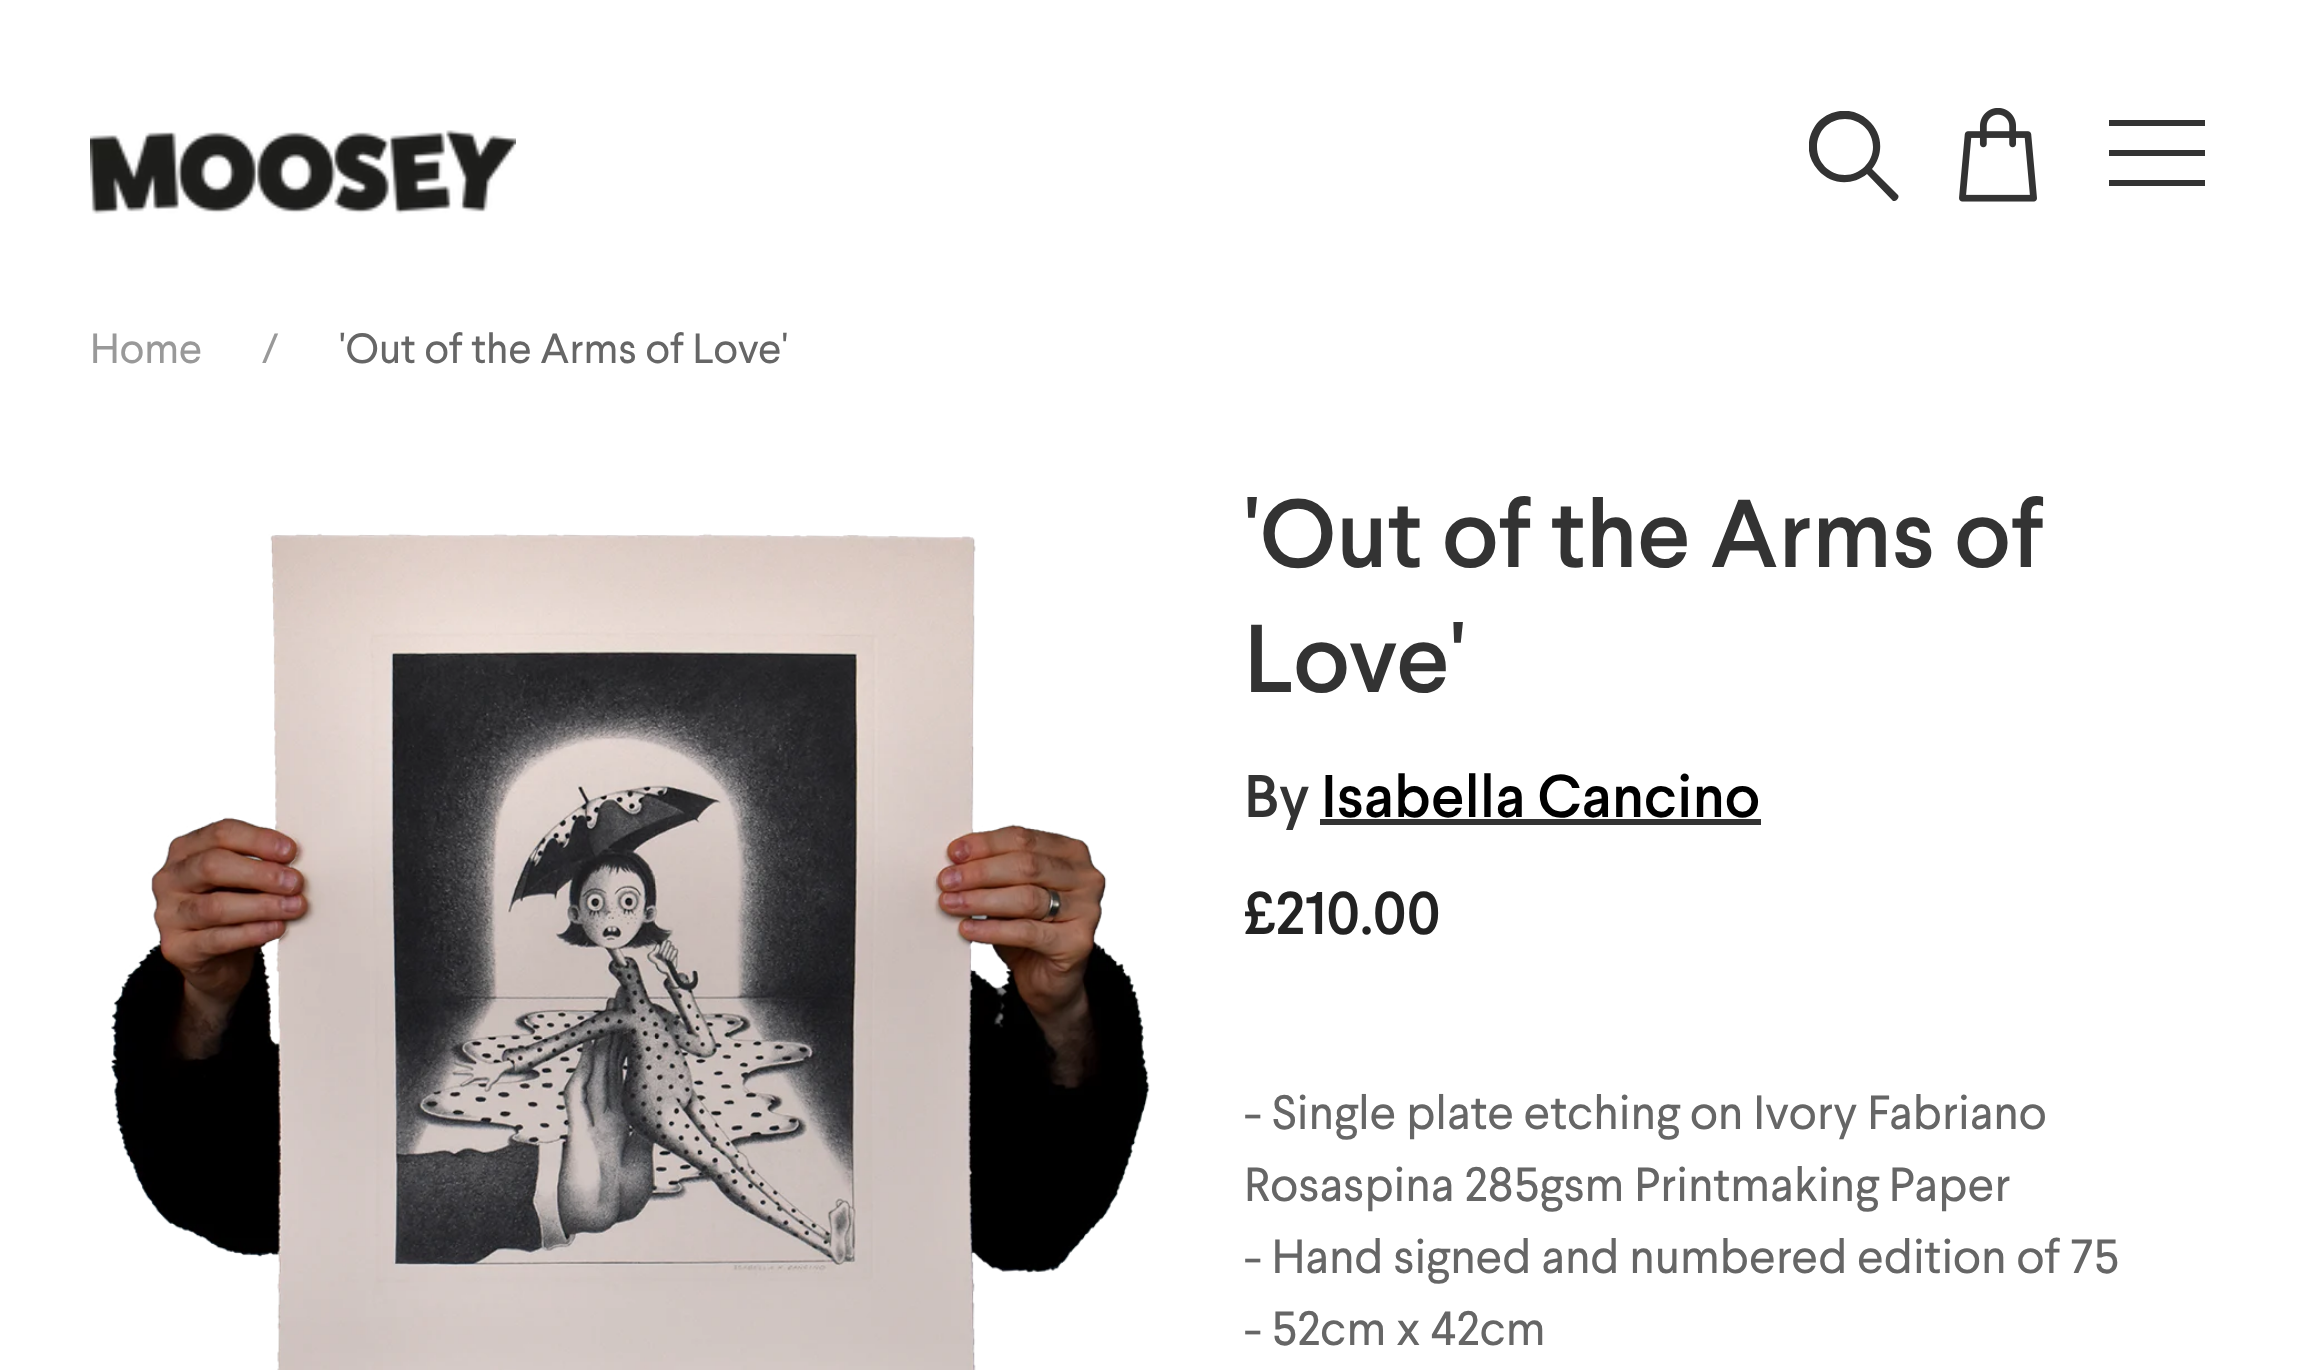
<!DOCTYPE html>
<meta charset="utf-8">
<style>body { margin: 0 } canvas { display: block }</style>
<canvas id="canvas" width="2307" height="1370"></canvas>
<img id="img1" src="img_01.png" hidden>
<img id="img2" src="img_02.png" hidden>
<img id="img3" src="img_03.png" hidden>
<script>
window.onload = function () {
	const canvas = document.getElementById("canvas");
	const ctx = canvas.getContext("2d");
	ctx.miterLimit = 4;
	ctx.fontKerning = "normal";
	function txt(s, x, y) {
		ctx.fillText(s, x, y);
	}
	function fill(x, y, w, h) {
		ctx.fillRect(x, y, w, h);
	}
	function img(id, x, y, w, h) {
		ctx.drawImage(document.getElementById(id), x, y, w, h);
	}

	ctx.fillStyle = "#FFFFFF";
	fill(0, 0, 2307, 1370);
	img("img1", 90, 130, 426, 84);
	ctx.save();
	ctx.beginPath();
	ctx.rect(1809, 111, 90, 90);
	ctx.clip();
	ctx.fillStyle = "#333333";
	ctx.beginPath();
	ctx.moveTo(1898, 195);
	ctx.lineTo(1872, 169);
	ctx.bezierCurveTo(1884, 154, 1883, 133, 1868, 120);
	ctx.bezierCurveTo(1854, 107, 1833, 108, 1819, 121);
	ctx.bezierCurveTo(1806, 135, 1805, 156, 1818, 170);
	ctx.bezierCurveTo(1831, 185, 1852, 186, 1867, 174);
	ctx.lineTo(1893, 201);
	ctx.bezierCurveTo(1896, 202, 1900, 197, 1898, 195);
	ctx.closePath();
	ctx.moveTo(1845, 175);
	ctx.bezierCurveTo(1829, 175, 1817, 162, 1817, 147);
	ctx.bezierCurveTo(1817, 131, 1829, 119, 1845, 119);
	ctx.bezierCurveTo(1860, 119, 1873, 131, 1873, 147);
	ctx.bezierCurveTo(1873, 162, 1860, 175, 1845, 175);
	ctx.closePath();
	ctx.fill();
	ctx.restore();
	img("img2", 1959, 108, 78, 94);
	ctx.fillStyle = "#333333";
	fill(2109, 120, 96, 6);
	fill(2109, 150, 96, 6);
	fill(2109, 180, 96, 6);
	img("img3", 111, 533, 1039, 837);
	fill(1320, 819, 441, 6);
	ctx.font = "42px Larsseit";
	ctx.fillStyle = "#999999";
	txt("Home", 90, 363);
	txt("/", 262, 363);
	ctx.fillStyle = "#666666";
	txt("'Out of the Arms of Love'", 339, 363);
	ctx.font = "500 96px Larsseit";
	ctx.fillStyle = "#333333";
	txt("'Out of the Arms of", 1244, 567);
	txt("Love'", 1244, 692);
	ctx.font = "500 60px Larsseit";
	txt("By", 1244, 817);
	ctx.fillStyle = "#000000";
	txt("Isabella Cancino", 1321, 817);
	ctx.fillStyle = "#222222";
	txt("£210.00", 1244, 934);
	ctx.font = "48px Larsseit";
	ctx.fillStyle = "#666666";
	txt("- Single plate etching on Ivory Fabriano", 1244, 1129);
	txt("Rosaspina 285gsm Printmaking Paper", 1244, 1201);
	txt("- Hand signed and numbered edition of 75", 1244, 1273);
	txt("- 52cm x 42cm", 1244, 1345);
};
</script>
